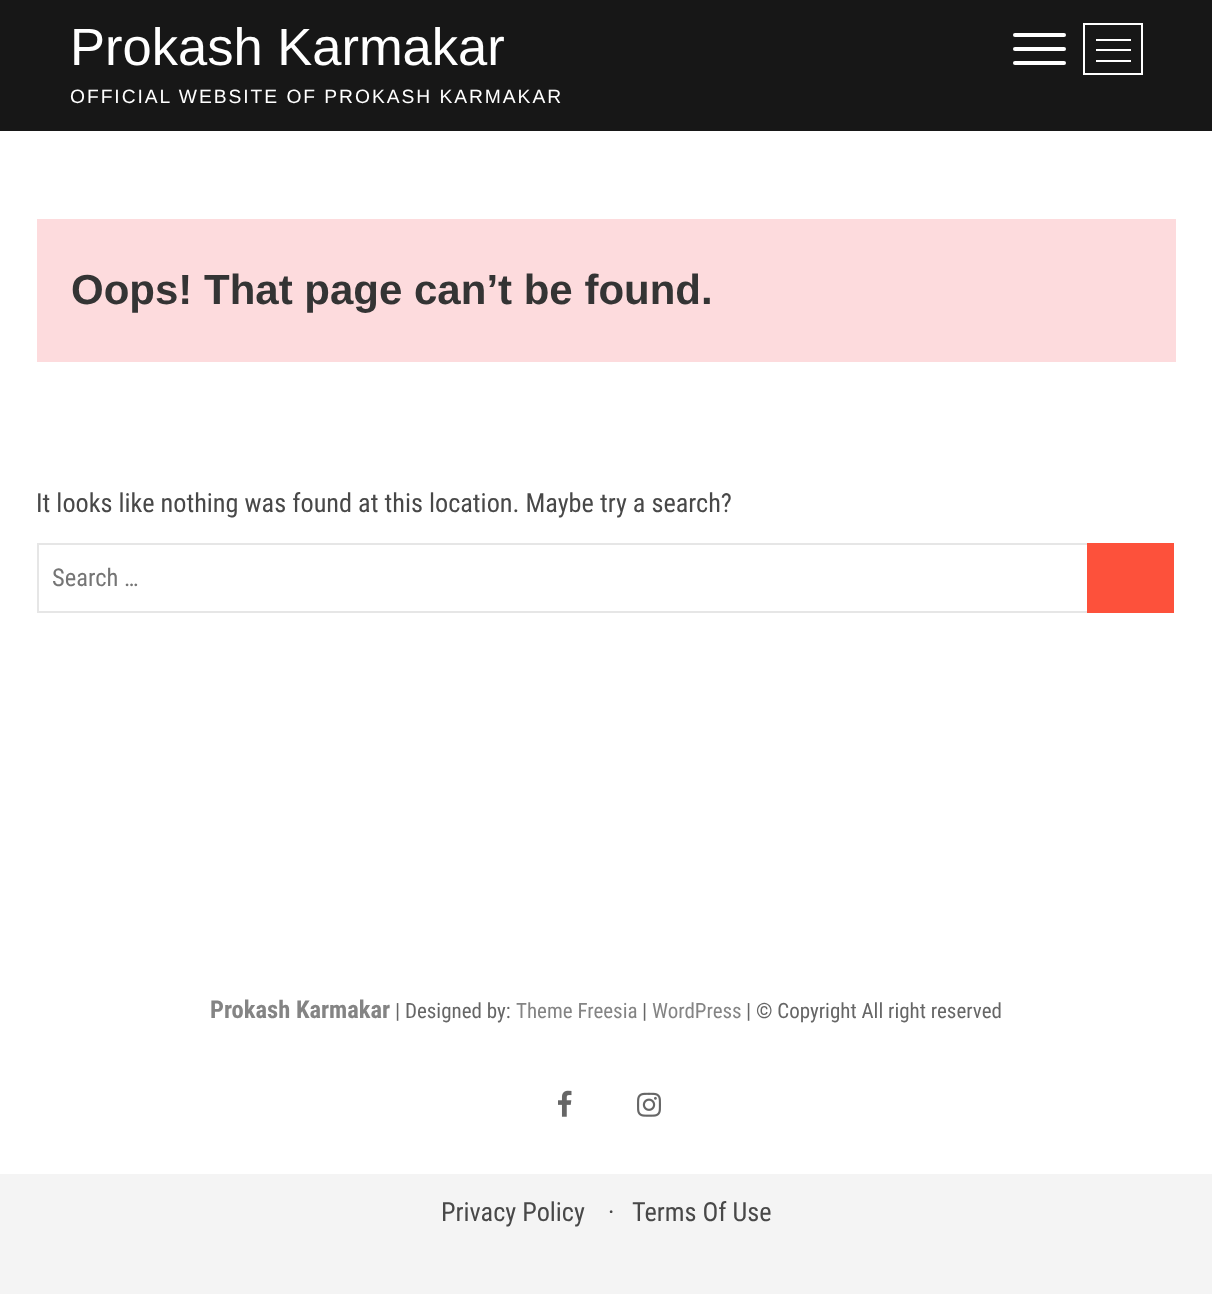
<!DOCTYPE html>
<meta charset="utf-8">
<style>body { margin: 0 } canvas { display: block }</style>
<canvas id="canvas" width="1212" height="1294"></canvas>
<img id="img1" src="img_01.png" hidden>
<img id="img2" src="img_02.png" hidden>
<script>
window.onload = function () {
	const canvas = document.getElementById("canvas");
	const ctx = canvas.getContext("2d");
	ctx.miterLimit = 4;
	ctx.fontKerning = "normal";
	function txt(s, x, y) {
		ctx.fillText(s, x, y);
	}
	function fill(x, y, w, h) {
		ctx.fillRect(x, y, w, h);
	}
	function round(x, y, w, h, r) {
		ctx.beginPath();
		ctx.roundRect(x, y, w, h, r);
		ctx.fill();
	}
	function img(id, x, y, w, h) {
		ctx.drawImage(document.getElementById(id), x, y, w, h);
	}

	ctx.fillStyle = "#F4F4F4";
	fill(0, 0, 1212, 1294);
	ctx.fillStyle = "#FFFFFF";
	fill(0, 131, 1212, 1043);
	ctx.fillStyle = "#171717";
	fill(0, 0, 1212, 131);
	ctx.fillStyle = "#FFFFFF";
	round(1013, 47, 53, 4, 2);
	round(1013, 33, 53, 4, 2);
	round(1013, 61, 53, 4, 2);
	ctx.strokeStyle = "#FFFFFF";
	ctx.lineWidth = 2;
	ctx.strokeRect(1084, 24, 58, 50);
	fill(1096, 49, 35, 2);
	fill(1096, 39, 35, 2);
	fill(1096, 60, 35, 2);
	ctx.fillStyle = "#FDDBDD";
	fill(37, 219, 1139, 143);
	ctx.strokeStyle = "#E6E6E6";
	ctx.strokeRect(38, 544, 1050, 68);
	ctx.fillStyle = "#FD513B";
	fill(1087, 543, 87, 70);
	img("img1", 558, 1090, 14, 27);
	img("img2", 637, 1092, 24, 25);
	ctx.font = "52.5px Liberation Sans";
	ctx.fillStyle = "#FFFFFF";
	txt("Prokash Karmakar", 70, 65);
	ctx.letterSpacing = "1.95px";
	ctx.font = "19.25px Liberation Sans";
	txt("OFFICIAL WEBSITE OF PROKASH KARMAKAR", 70, 103);
	ctx.letterSpacing = "0px";
	ctx.font = "bold 42px Liberation Sans";
	ctx.fillStyle = "#343434";
	txt("Oops! That page can’t be found.", 71, 304);
	ctx.font = "26.25px Roboto Condensed";
	ctx.fillStyle = "#484848";
	txt("It looks like nothing was found at this location. Maybe try a search?", 36, 512);
	ctx.font = "24.5px Roboto Condensed";
	ctx.fillStyle = "#757575";
	txt("Search …", 52, 586);
	ctx.font = "bold 24.5px Roboto Condensed";
	ctx.fillStyle = "#848484";
	txt("Prokash Karmakar", 210, 1018);
	ctx.font = "21px Roboto Condensed";
	ctx.fillStyle = "#666666";
	txt("| Designed by:", 395, 1018);
	ctx.fillStyle = "#848484";
	txt("Theme Freesia", 516, 1018);
	ctx.fillStyle = "#666666";
	txt("|", 642, 1018);
	ctx.fillStyle = "#848484";
	txt("WordPress", 652, 1018);
	ctx.fillStyle = "#666666";
	txt("| © Copyright All right reserved", 746, 1018);
	ctx.font = "26.25px Roboto Condensed";
	ctx.fillStyle = "#484848";
	txt("Privacy Policy", 441, 1221);
	txt("·", 608, 1221);
	txt("Terms Of Use", 632, 1221);
};
</script>
